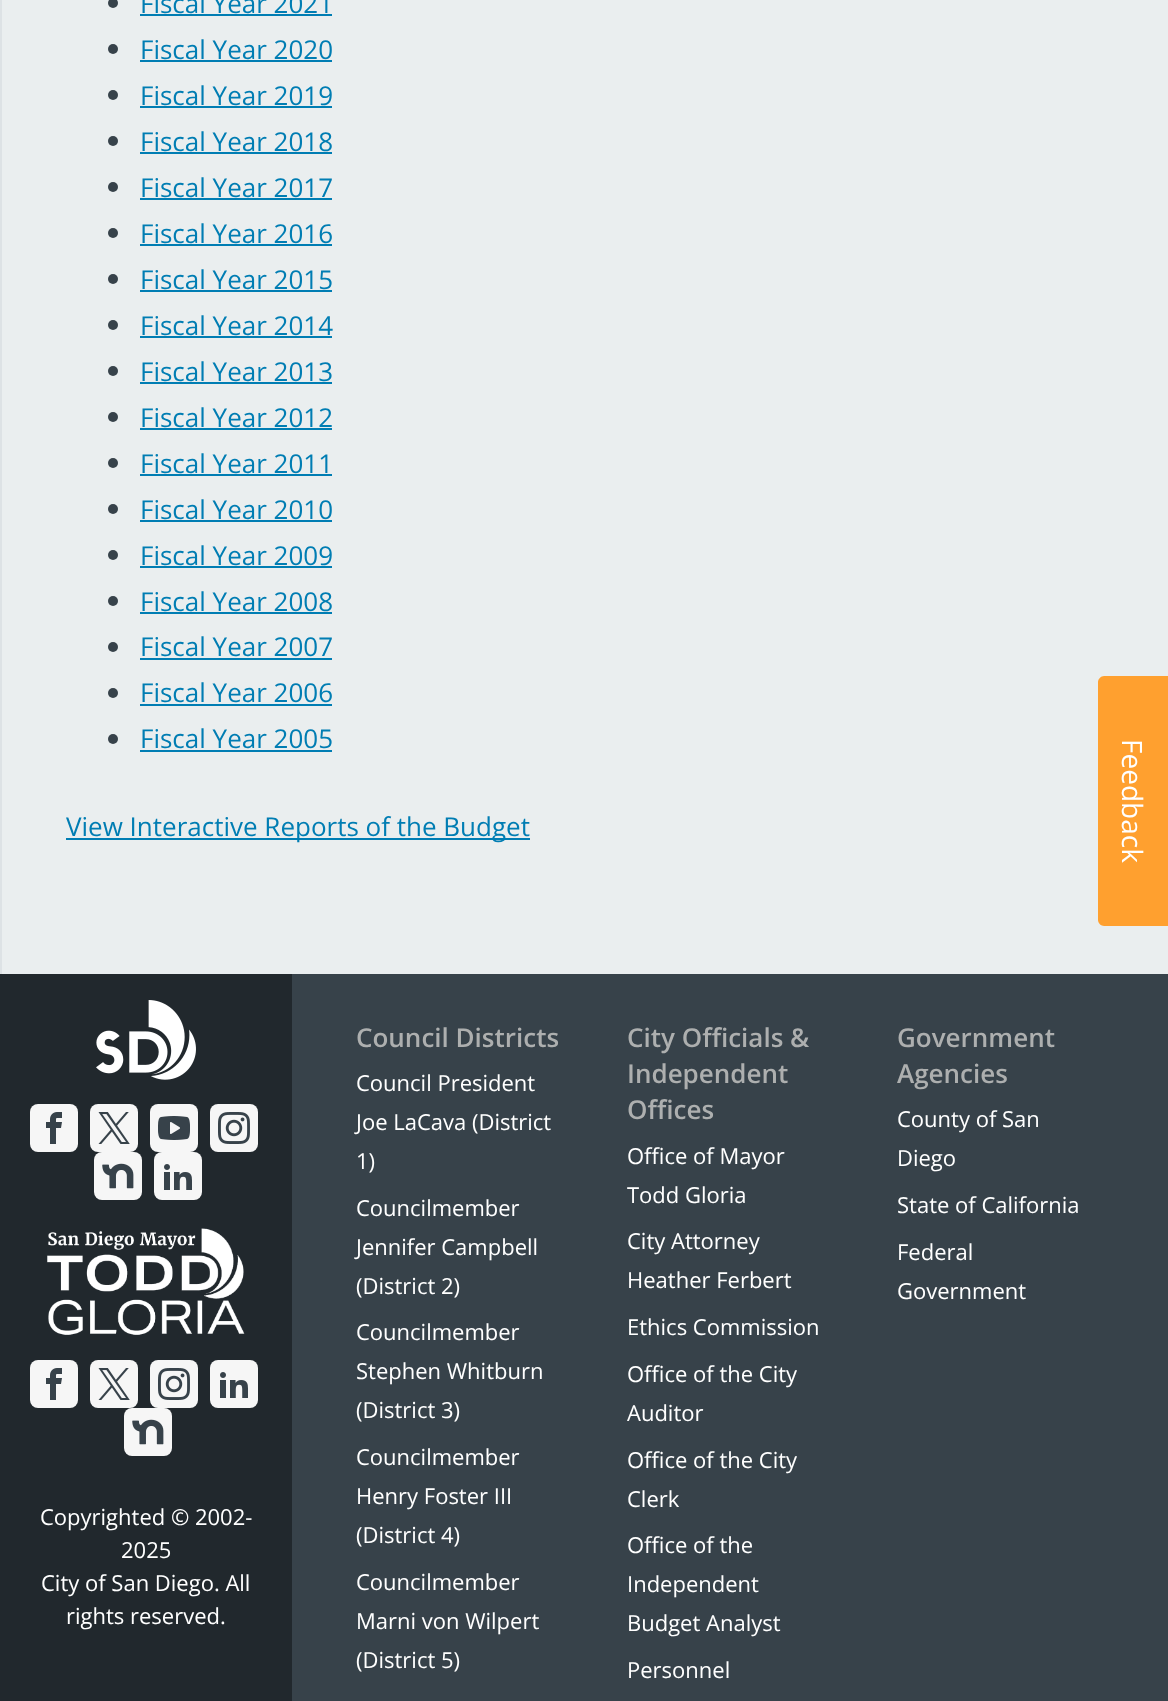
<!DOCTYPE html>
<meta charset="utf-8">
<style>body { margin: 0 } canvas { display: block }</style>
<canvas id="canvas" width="1168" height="1701"></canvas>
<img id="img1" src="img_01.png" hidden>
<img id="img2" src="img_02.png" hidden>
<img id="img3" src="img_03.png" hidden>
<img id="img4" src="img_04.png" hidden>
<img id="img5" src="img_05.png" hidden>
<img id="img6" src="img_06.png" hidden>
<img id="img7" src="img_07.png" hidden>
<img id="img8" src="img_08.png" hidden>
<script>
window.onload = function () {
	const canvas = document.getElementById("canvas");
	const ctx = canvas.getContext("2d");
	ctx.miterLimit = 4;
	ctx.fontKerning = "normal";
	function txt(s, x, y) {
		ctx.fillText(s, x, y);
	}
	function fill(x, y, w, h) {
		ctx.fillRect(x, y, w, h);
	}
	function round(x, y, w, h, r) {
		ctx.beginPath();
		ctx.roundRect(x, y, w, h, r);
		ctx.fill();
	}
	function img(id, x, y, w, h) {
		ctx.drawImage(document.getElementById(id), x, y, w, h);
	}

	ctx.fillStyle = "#37424A";
	fill(0, 0, 1168, 1701);
	ctx.fillStyle = "#EAEEEF";
	fill(2, 0, 1166, 974);
	ctx.fillStyle = "#DDE2E5";
	fill(0, 0, 2, 974);
	ctx.fillStyle = "#37424A";
	ctx.beginPath();
	ctx.arc(113, 3, 5, 0, Math.PI * 2);
	ctx.fill();
	ctx.fillStyle = "#007DB3";
	fill(140, 14, 192, 2);
	ctx.fillStyle = "#37424A";
	ctx.beginPath();
	ctx.arc(113, 49, 5, 0, Math.PI * 2);
	ctx.fill();
	ctx.fillStyle = "#007DB3";
	fill(140, 60, 192, 2);
	ctx.fillStyle = "#37424A";
	ctx.beginPath();
	ctx.arc(113, 95, 5, 0, Math.PI * 2);
	ctx.fill();
	ctx.fillStyle = "#007DB3";
	fill(140, 106, 192, 2);
	ctx.fillStyle = "#37424A";
	ctx.beginPath();
	ctx.arc(113, 141, 5, 0, Math.PI * 2);
	ctx.fill();
	ctx.fillStyle = "#007DB3";
	fill(140, 152, 192, 2);
	ctx.fillStyle = "#37424A";
	ctx.beginPath();
	ctx.arc(113, 187, 5, 0, Math.PI * 2);
	ctx.fill();
	ctx.fillStyle = "#007DB3";
	fill(140, 198, 192, 2);
	ctx.fillStyle = "#37424A";
	ctx.beginPath();
	ctx.arc(113, 233, 5, 0, Math.PI * 2);
	ctx.fill();
	ctx.fillStyle = "#007DB3";
	fill(140, 244, 192, 2);
	ctx.fillStyle = "#37424A";
	ctx.beginPath();
	ctx.arc(113, 279, 5, 0, Math.PI * 2);
	ctx.fill();
	ctx.fillStyle = "#007DB3";
	fill(140, 290, 192, 2);
	ctx.fillStyle = "#37424A";
	ctx.beginPath();
	ctx.arc(113, 325, 5, 0, Math.PI * 2);
	ctx.fill();
	ctx.fillStyle = "#007DB3";
	fill(140, 336, 192, 2);
	ctx.fillStyle = "#37424A";
	ctx.beginPath();
	ctx.arc(113, 371, 5, 0, Math.PI * 2);
	ctx.fill();
	ctx.fillStyle = "#007DB3";
	fill(140, 382, 192, 2);
	ctx.fillStyle = "#37424A";
	ctx.beginPath();
	ctx.arc(113, 417, 5, 0, Math.PI * 2);
	ctx.fill();
	ctx.fillStyle = "#007DB3";
	fill(140, 428, 192, 2);
	ctx.fillStyle = "#37424A";
	ctx.beginPath();
	ctx.arc(113, 463, 5, 0, Math.PI * 2);
	ctx.fill();
	ctx.fillStyle = "#007DB3";
	fill(140, 474, 192, 2);
	ctx.fillStyle = "#37424A";
	ctx.beginPath();
	ctx.arc(113, 509, 5, 0, Math.PI * 2);
	ctx.fill();
	ctx.fillStyle = "#007DB3";
	fill(140, 520, 192, 2);
	ctx.fillStyle = "#37424A";
	ctx.beginPath();
	ctx.arc(113, 555, 5, 0, Math.PI * 2);
	ctx.fill();
	ctx.fillStyle = "#007DB3";
	fill(140, 566, 192, 2);
	ctx.fillStyle = "#37424A";
	ctx.beginPath();
	ctx.arc(113, 601, 5, 0, Math.PI * 2);
	ctx.fill();
	ctx.fillStyle = "#007DB3";
	fill(140, 612, 192, 2);
	ctx.fillStyle = "#37424A";
	ctx.beginPath();
	ctx.arc(113, 647, 5, 0, Math.PI * 2);
	ctx.fill();
	ctx.fillStyle = "#007DB3";
	fill(140, 658, 192, 2);
	ctx.fillStyle = "#37424A";
	ctx.beginPath();
	ctx.arc(113, 693, 5, 0, Math.PI * 2);
	ctx.fill();
	ctx.fillStyle = "#007DB3";
	fill(140, 704, 192, 2);
	ctx.fillStyle = "#37424A";
	ctx.beginPath();
	ctx.arc(113, 739, 5, 0, Math.PI * 2);
	ctx.fill();
	ctx.fillStyle = "#007DB3";
	fill(140, 750, 192, 2);
	fill(66, 838, 464, 2);
	ctx.fillStyle = "#21282D";
	fill(0, 974, 292, 727);
	img("img1", 96, 1000, 100, 80);
	ctx.fillStyle = "#F6F6F6";
	round(30, 1104, 48, 48, 8);
	img("img2", 46, 1112, 16, 32);
	round(90, 1104, 48, 48, 8);
	img("img3", 98, 1112, 32, 32);
	round(150, 1104, 48, 48, 8);
	img("img4", 158, 1116, 32, 24);
	round(210, 1104, 48, 48, 8);
	img("img5", 218, 1112, 32, 32);
	round(94, 1152, 48, 48, 8);
	img("img6", 102, 1163, 32, 26);
	round(154, 1152, 48, 48, 8);
	img("img7", 164, 1164, 28, 26);
	img("img8", 47, 1228, 198, 107);
	round(30, 1360, 48, 48, 8);
	img("img2", 46, 1368, 16, 32);
	round(90, 1360, 48, 48, 8);
	img("img3", 98, 1368, 32, 32);
	round(150, 1360, 48, 48, 8);
	img("img5", 158, 1368, 32, 32);
	round(210, 1360, 48, 48, 8);
	img("img7", 220, 1372, 28, 26);
	round(124, 1408, 48, 48, 8);
	img("img6", 132, 1419, 32, 26);
	ctx.fillStyle = "#FFA02F";
	ctx.beginPath();
	ctx.moveTo(1168, 676);
	ctx.lineTo(1168, 926);
	ctx.lineTo(1104, 926);
	ctx.bezierCurveTo(1101, 926, 1098, 923, 1098, 920);
	ctx.lineTo(1098, 682);
	ctx.bezierCurveTo(1098, 679, 1101, 676, 1104, 676);
	ctx.closePath();
	ctx.fill();
	ctx.font = "26px Open Sans";
	ctx.fillStyle = "#007DB3";
	txt("Fiscal Year 2021", 140, 13);
	txt("Fiscal Year 2020", 140, 59);
	txt("Fiscal Year 2019", 140, 105);
	txt("Fiscal Year 2018", 140, 151);
	txt("Fiscal Year 2017", 140, 197);
	txt("Fiscal Year 2016", 140, 243);
	txt("Fiscal Year 2015", 140, 289);
	txt("Fiscal Year 2014", 140, 335);
	txt("Fiscal Year 2013", 140, 381);
	txt("Fiscal Year 2012", 140, 427);
	txt("Fiscal Year 2011", 140, 473);
	txt("Fiscal Year 2010", 140, 519);
	txt("Fiscal Year 2009", 140, 565);
	txt("Fiscal Year 2008", 140, 611);
	txt("Fiscal Year 2007", 140, 656);
	txt("Fiscal Year 2006", 140, 702);
	txt("Fiscal Year 2005", 140, 748);
	txt("View Interactive Reports of the Budget", 66, 836);
	ctx.font = "22px Open Sans";
	ctx.fillStyle = "#FFFFFF";
	txt("Copyrighted © 2002-", 40, 1525);
	txt("2025", 121, 1558);
	txt("City of San Diego. All", 41, 1591);
	txt("rights reserved.", 66, 1624);
	ctx.font = "600 26px Open Sans";
	ctx.fillStyle = "#ADAFAF";
	txt("Council Districts", 356, 1047);
	ctx.font = "22px Open Sans";
	ctx.fillStyle = "#FFFFFF";
	txt("Council President", 356, 1091);
	txt("Joe LaCava (District", 356, 1130);
	txt("1)", 356, 1169);
	txt("Councilmember", 356, 1216);
	txt("Jennifer Campbell", 356, 1255);
	txt("(District 2)", 356, 1294);
	txt("Councilmember", 356, 1340);
	txt("Stephen Whitburn", 356, 1379);
	txt("(District 3)", 356, 1418);
	txt("Councilmember", 356, 1465);
	txt("Henry Foster III", 356, 1504);
	txt("(District 4)", 356, 1543);
	txt("Councilmember", 356, 1590);
	txt("Marni von Wilpert", 356, 1629);
	txt("(District 5)", 356, 1668);
	ctx.font = "600 26px Open Sans";
	ctx.fillStyle = "#ADAFAF";
	txt("City Officials &", 627, 1047);
	txt("Independent", 627, 1083);
	txt("Offices", 627, 1119);
	ctx.font = "22px Open Sans";
	ctx.fillStyle = "#FFFFFF";
	txt("Office of Mayor", 627, 1164);
	txt("Todd Gloria", 627, 1203);
	txt("City Attorney", 627, 1249);
	txt("Heather Ferbert", 627, 1288);
	txt("Ethics Commission", 627, 1335);
	txt("Office of the City", 627, 1382);
	txt("Auditor", 627, 1421);
	txt("Office of the City", 627, 1468);
	txt("Clerk", 627, 1507);
	txt("Office of the", 627, 1553);
	txt("Independent", 627, 1592);
	txt("Budget Analyst", 627, 1631);
	txt("Personnel", 627, 1678);
	ctx.font = "600 26px Open Sans";
	ctx.fillStyle = "#ADAFAF";
	txt("Government", 897, 1047);
	txt("Agencies", 897, 1083);
	ctx.font = "22px Open Sans";
	ctx.fillStyle = "#FFFFFF";
	txt("County of San", 897, 1127);
	txt("Diego", 897, 1166);
	txt("State of California", 897, 1213);
	txt("Federal", 897, 1260);
	txt("Government", 897, 1299);
	ctx.font = "28px Open Sans";
	ctx.save();
	ctx.translate(1122, 739);
	ctx.rotate(90 * Math.PI / 180);
	ctx.fillText("Feedback", 0, 0);
	ctx.restore();
};
</script>
